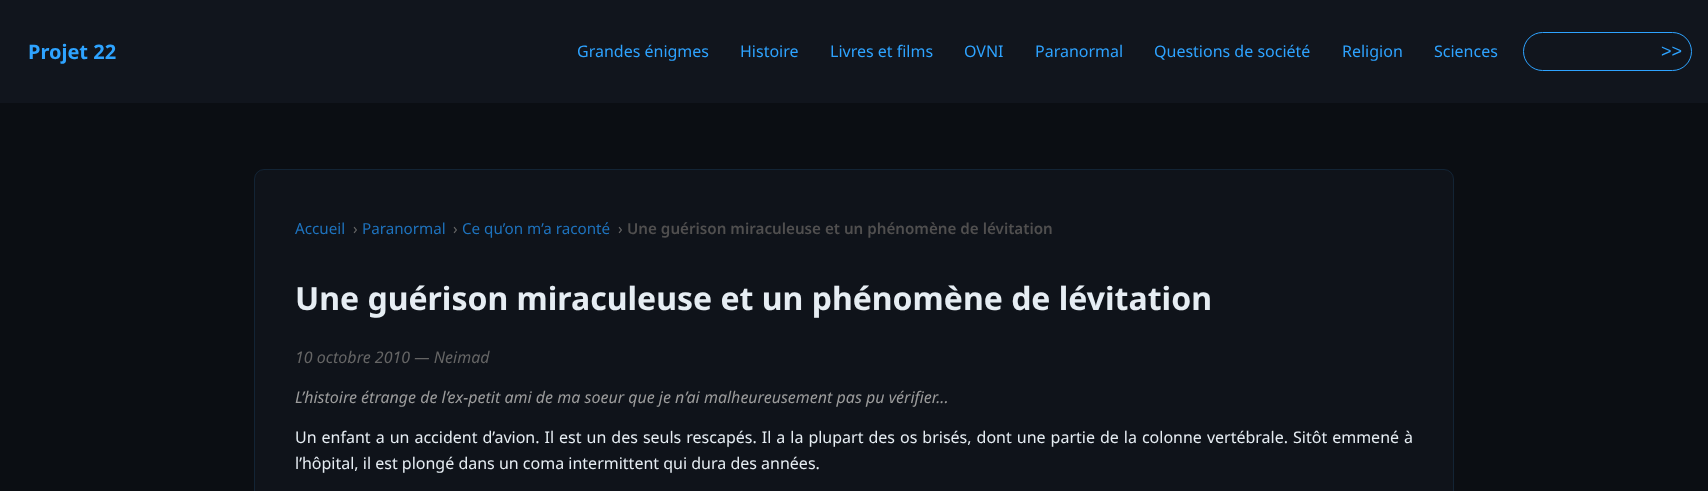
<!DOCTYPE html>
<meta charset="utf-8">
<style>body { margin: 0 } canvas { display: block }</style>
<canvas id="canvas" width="1708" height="491"></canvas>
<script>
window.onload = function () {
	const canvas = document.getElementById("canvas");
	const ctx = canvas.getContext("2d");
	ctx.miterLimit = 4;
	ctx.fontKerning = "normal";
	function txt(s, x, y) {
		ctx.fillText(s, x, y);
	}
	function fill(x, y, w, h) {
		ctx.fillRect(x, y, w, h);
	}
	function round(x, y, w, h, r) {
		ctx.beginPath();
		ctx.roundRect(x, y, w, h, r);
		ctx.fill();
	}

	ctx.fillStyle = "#0B0E13";
	fill(0, 0, 1708, 491);
	ctx.fillStyle = "#11151D";
	fill(0, 0, 1708, 103);
	ctx.beginPath();
	ctx.roundRect(1523.5, 32.5, 168, 38, 19);
	ctx.strokeStyle = "#2EA3FF";
	ctx.stroke();
	ctx.fillStyle = "#0F131A";
	round(254, 169, 1200, 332, 10);
	ctx.beginPath();
	ctx.roundRect(254.5, 169.5, 1199, 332, 9.5);
	ctx.strokeStyle = "rgba(46, 163, 255, 0.12)";
	ctx.stroke();
	ctx.font = "bold 20px Noto Sans";
	ctx.fillStyle = "#2EA3FF";
	txt("Projet 22", 28, 59);
	ctx.font = "16px Noto Sans";
	txt("Grandes énigmes", 577, 57);
	txt("Histoire", 740, 57);
	txt("Livres et films", 830, 57);
	txt("OVNI", 964, 57);
	txt("Paranormal", 1035, 57);
	txt("Questions de société", 1154, 57);
	txt("Religion", 1342, 57);
	txt("Sciences", 1434, 57);
	ctx.font = "18px Liberation Sans";
	txt(">>", 1661, 57);
	ctx.font = "15.2px Noto Sans";
	ctx.fillStyle = "#1E73BE";
	txt("Accueil", 295, 234);
	ctx.fillStyle = "#656565";
	txt("›", 353, 234);
	ctx.fillStyle = "#1E73BE";
	txt("Paranormal", 362, 234);
	ctx.fillStyle = "#656565";
	txt("›", 453, 234);
	ctx.fillStyle = "#1E73BE";
	txt("Ce qu’on m’a raconté", 462, 234);
	ctx.fillStyle = "#656565";
	txt("›", 618, 234);
	ctx.font = "600 15.2px Noto Sans";
	ctx.fillStyle = "#504F4F";
	txt("Une guérison miraculeuse et un phénomène de lévitation", 627, 234);
	ctx.font = "bold 32px Noto Sans";
	ctx.fillStyle = "#E6EDF3";
	txt("Une guérison miraculeuse et un phénomène de lévitation", 295, 310);
	ctx.font = "italic 16px Noto Sans";
	ctx.fillStyle = "#656565";
	txt("10 octobre 2010 — Neimad", 295, 363);
	ctx.fillStyle = "#9C9C9C";
	txt("L’histoire étrange de l’ex-petit ami de ma soeur que je n’ai malheureusement pas pu vérifier...", 295, 403);
	ctx.wordSpacing = "0.85px";
	ctx.font = "16px Noto Sans";
	ctx.fillStyle = "#E6EDF3";
	txt("Un enfant a un accident d’avion. Il est un des seuls rescapés. Il a la plupart des os brisés, dont une partie de la colonne vertébrale. Sitôt emmené à", 295, 443);
	ctx.wordSpacing = "0px";
	txt("l’hôpital, il est plongé dans un coma intermittent qui dura des années.", 295, 469);
};
</script>
